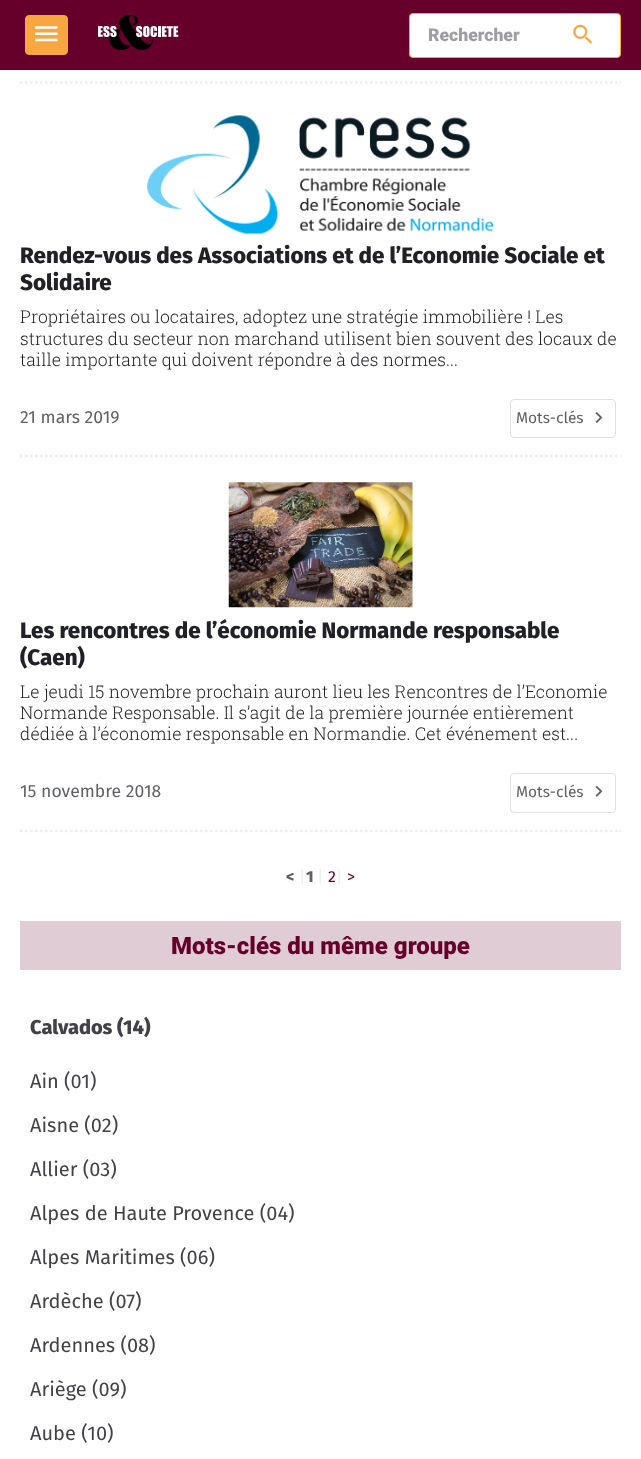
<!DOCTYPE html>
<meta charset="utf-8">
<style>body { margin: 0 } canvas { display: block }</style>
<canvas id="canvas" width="641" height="1459"></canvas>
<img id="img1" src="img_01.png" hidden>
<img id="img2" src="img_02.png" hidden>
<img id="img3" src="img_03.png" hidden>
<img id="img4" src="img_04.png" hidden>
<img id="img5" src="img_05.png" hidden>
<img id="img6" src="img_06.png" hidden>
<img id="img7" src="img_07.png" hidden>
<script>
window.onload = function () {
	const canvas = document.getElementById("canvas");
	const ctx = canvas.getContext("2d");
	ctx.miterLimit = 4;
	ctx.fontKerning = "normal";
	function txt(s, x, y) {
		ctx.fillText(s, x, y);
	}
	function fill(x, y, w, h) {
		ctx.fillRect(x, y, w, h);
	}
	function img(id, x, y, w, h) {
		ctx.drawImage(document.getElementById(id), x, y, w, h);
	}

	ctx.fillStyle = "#FFFFFF";
	fill(0, 0, 641, 1459);
	ctx.fillStyle = "#66002B";
	fill(0, 0, 641, 70);
	ctx.fillStyle = "#F8A640";
	ctx.beginPath();
	ctx.roundRect(25.5, 15.5, 42, 39, 3.5);
	ctx.fill();
	ctx.strokeStyle = "#F8A640";
	ctx.stroke();
	img("img1", 35, 26, 23, 16);
	img("img2", 98, 15, 81, 35);
	ctx.fillStyle = "#FFFFFF";
	ctx.beginPath();
	ctx.roundRect(409.5, 13.5, 211, 44, 3.5);
	ctx.fill();
	ctx.stroke();
	img("img3", 573, 24, 19, 20);
	ctx.beginPath();
	ctx.moveTo(20, 82.5);
	ctx.lineTo(621, 82.5);
	ctx.strokeStyle = "#EEEEEE";
	ctx.lineWidth = 2.5;
	ctx.setLineDash([2.5, 2.5]);
	ctx.stroke();
	ctx.beginPath();
	ctx.moveTo(20, 456);
	ctx.lineTo(621, 456);
	ctx.stroke();
	img("img4", 147, 115, 347, 119);
	ctx.beginPath();
	ctx.roundRect(510.5, 399.5, 105, 38, 3.5);
	ctx.strokeStyle = "#DDE0E7";
	ctx.lineWidth = 1;
	ctx.setLineDash([]);
	ctx.stroke();
	img("img5", 595, 412, 8, 11);
	ctx.beginPath();
	ctx.moveTo(20, 831);
	ctx.lineTo(621, 831);
	ctx.strokeStyle = "#EEEEEE";
	ctx.lineWidth = 2.5;
	ctx.setLineDash([2.5, 2.5]);
	ctx.stroke();
	img("img6", 228, 482, 185, 126);
	ctx.beginPath();
	ctx.roundRect(510.5, 773.5, 105, 39, 3.5);
	ctx.strokeStyle = "#DDE0E7";
	ctx.lineWidth = 1;
	ctx.setLineDash([]);
	ctx.stroke();
	img("img7", 595, 785, 8, 12);
	ctx.fillStyle = "#E0CCD5";
	fill(20, 921, 601, 49);
	ctx.font = "900 17.6px Roboto";
	ctx.fillStyle = "#9C9EA4";
	txt("Rechercher", 428, 41);
	ctx.font = "800 22.35px Fira Sans";
	ctx.fillStyle = "#1F2126";
	txt("Rendez-vous des Associations et de l’Economie Sociale et", 20, 263);
	txt("Solidaire", 20, 290);
	ctx.font = "300 17.6px Roboto Slab";
	txt("Propriétaires ou locataires, adoptez une stratégie immobilière ! Les", 20, 323);
	txt("structures du secteur non marchand utilisent bien souvent des locaux de", 20, 345);
	txt("taille importante qui doivent répondre à des normes...", 20, 366);
	ctx.font = "17.6px Fira Sans";
	ctx.fillStyle = "#5F6167";
	txt("21 mars 2019", 20, 423);
	ctx.font = "15.5px Fira Sans";
	txt("Mots-clés", 516, 423);
	ctx.font = "800 22.35px Fira Sans";
	ctx.fillStyle = "#1F2126";
	txt("Les rencontres de l’économie Normande responsable", 20, 638);
	txt("(Caen)", 20, 665);
	ctx.font = "300 17.6px Roboto Slab";
	txt("Le jeudi 15 novembre prochain auront lieu les Rencontres de l’Economie", 20, 698);
	txt("Normande Responsable. Il s’agit de la première journée entièrement", 20, 719);
	txt("dédiée à l’économie responsable en Normandie. Cet événement est...", 20, 740);
	ctx.font = "17.6px Fira Sans";
	ctx.fillStyle = "#5F6167";
	txt("15 novembre 2018", 20, 797);
	ctx.font = "15.5px Fira Sans";
	txt("Mots-clés", 516, 797);
	ctx.font = "800 16px Fira Sans";
	txt("<", 286, 882);
	ctx.font = "16px Fira Sans";
	ctx.fillStyle = "#EBEEF5";
	txt("|", 299, 882);
	ctx.font = "800 16px Fira Sans";
	ctx.fillStyle = "#5F6167";
	txt("1", 306, 882);
	ctx.font = "16px Fira Sans";
	ctx.fillStyle = "#EBEEF5";
	txt("|", 317, 882);
	ctx.fillStyle = "#66002B";
	txt("2", 328, 882);
	ctx.fillStyle = "#EBEEF5";
	txt("|", 336, 882);
	ctx.fillStyle = "#66002B";
	txt(">", 347, 882);
	ctx.font = "900 24px Roboto";
	txt("Mots-clés du même groupe", 171, 954);
	ctx.font = "800 20px Fira Sans";
	ctx.fillStyle = "#404248";
	txt("Calvados (14)", 30, 1034);
	ctx.font = "20px Fira Sans";
	txt("Ain (01)", 30, 1088);
	txt("Aisne (02)", 30, 1132);
	txt("Allier (03)", 30, 1176);
	txt("Alpes de Haute Provence (04)", 30, 1220);
	txt("Alpes Maritimes (06)", 30, 1264);
	txt("Ardèche (07)", 30, 1308);
	txt("Ardennes (08)", 30, 1352);
	txt("Ariège (09)", 30, 1396);
	txt("Aube (10)", 30, 1440);
};
</script>
